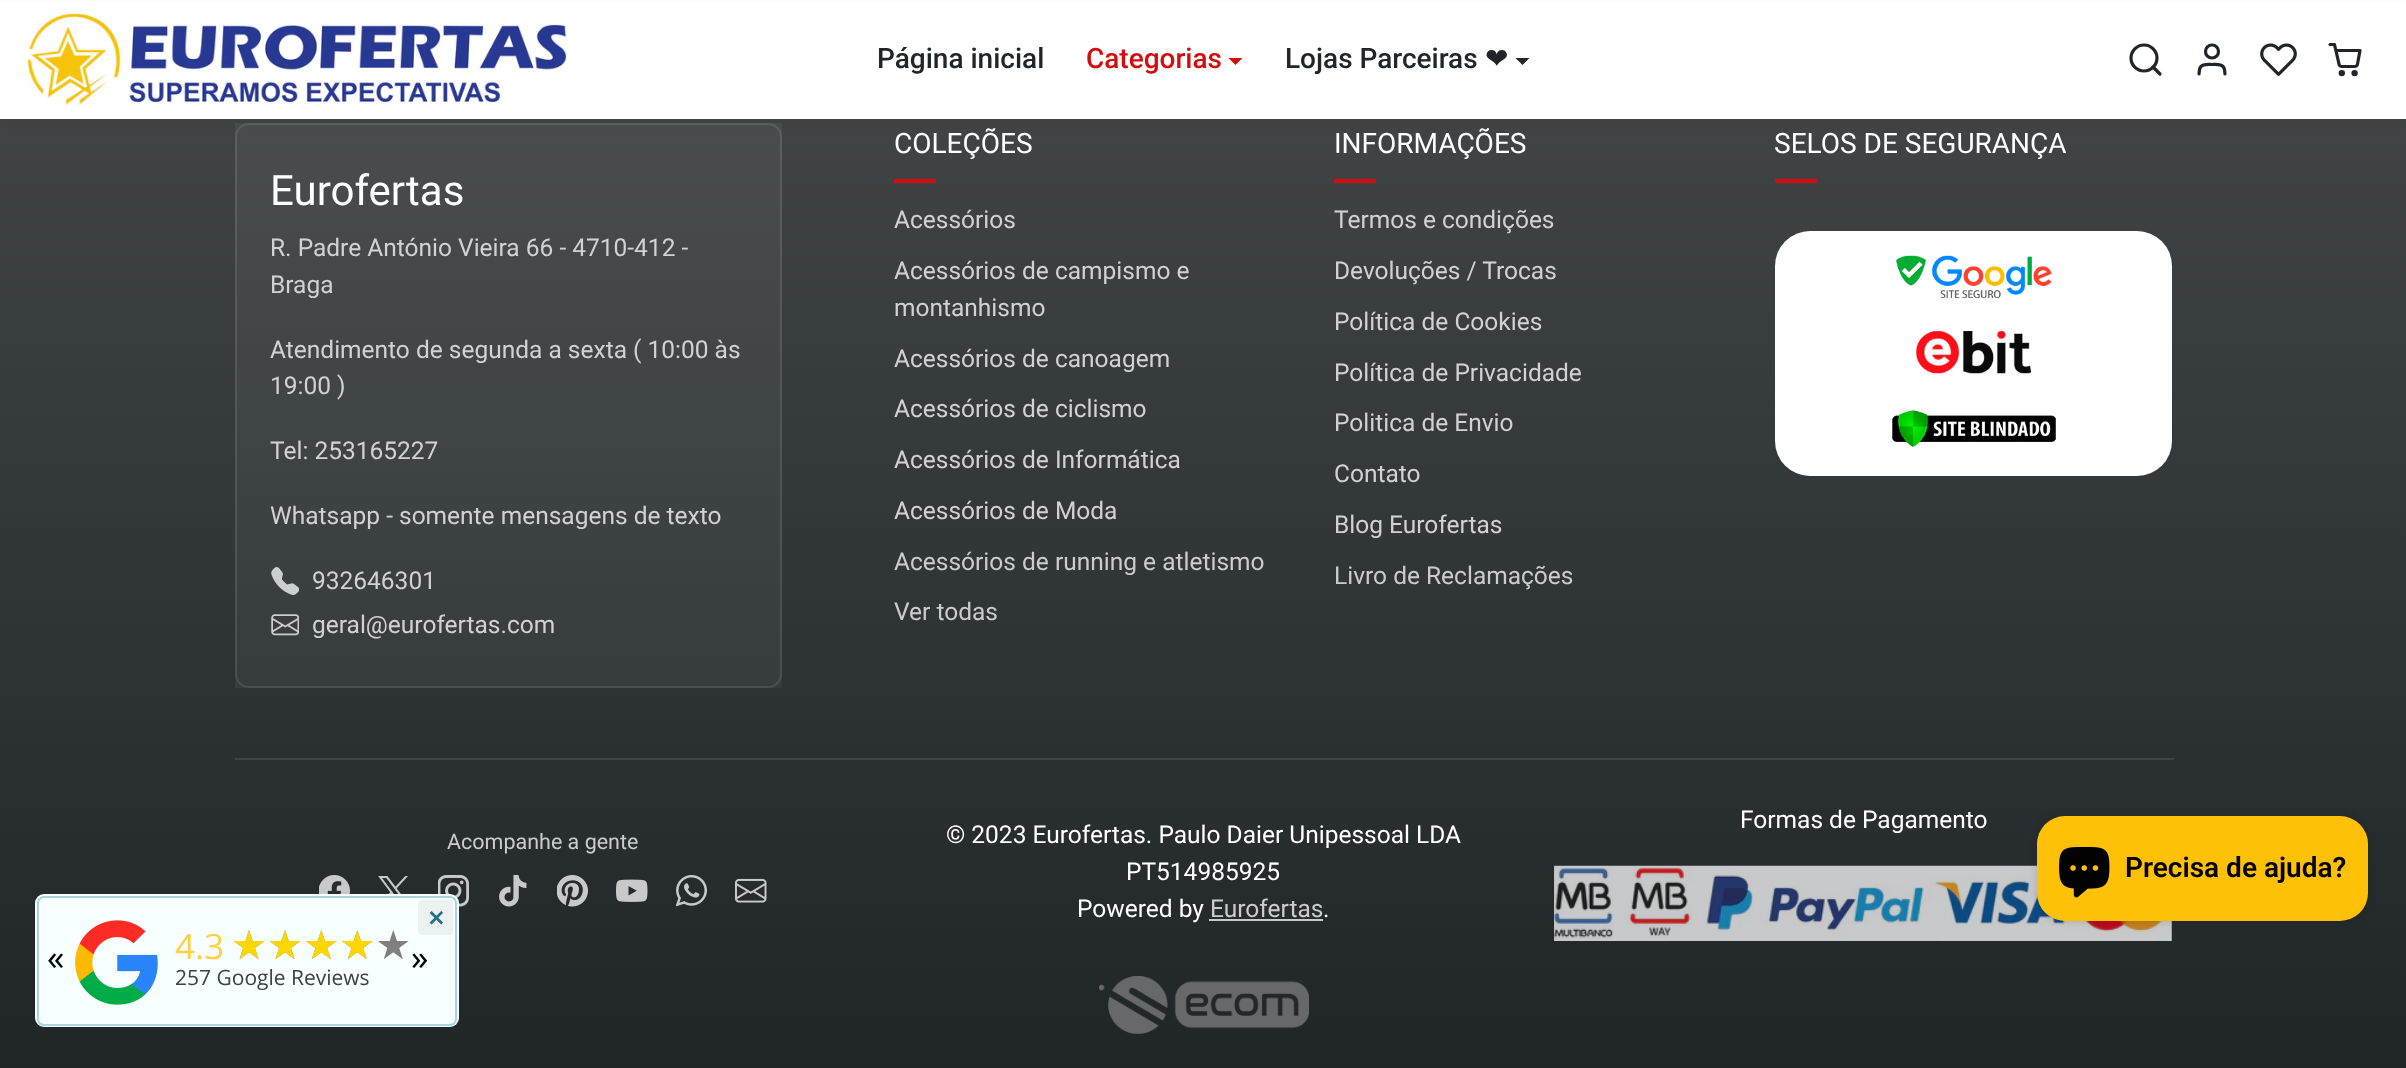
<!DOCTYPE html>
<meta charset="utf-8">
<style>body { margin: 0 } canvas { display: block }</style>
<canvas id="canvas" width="2406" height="1068"></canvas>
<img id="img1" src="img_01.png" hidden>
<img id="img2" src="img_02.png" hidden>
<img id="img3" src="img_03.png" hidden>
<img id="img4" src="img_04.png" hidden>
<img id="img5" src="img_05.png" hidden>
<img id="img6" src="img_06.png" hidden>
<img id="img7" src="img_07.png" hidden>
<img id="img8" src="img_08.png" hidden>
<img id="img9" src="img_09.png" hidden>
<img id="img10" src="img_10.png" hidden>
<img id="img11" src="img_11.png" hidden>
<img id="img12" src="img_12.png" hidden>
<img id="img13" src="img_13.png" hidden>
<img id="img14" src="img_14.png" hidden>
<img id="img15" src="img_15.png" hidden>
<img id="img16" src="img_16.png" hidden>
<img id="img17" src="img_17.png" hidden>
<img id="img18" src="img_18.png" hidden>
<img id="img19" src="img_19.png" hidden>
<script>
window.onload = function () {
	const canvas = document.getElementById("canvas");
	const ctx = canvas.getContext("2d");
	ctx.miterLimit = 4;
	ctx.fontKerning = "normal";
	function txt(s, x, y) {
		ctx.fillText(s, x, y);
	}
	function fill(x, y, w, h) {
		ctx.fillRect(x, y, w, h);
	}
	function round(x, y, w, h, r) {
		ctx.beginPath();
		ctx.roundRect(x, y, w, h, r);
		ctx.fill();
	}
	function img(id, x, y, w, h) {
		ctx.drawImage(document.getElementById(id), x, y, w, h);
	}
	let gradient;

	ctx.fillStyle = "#FFFFFF";
	fill(0, 0, 2406, 1068);
	gradient = ctx.createLinearGradient(1203, 52, 1203, 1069);
	gradient.addColorStop(0, "#424648");
	gradient.addColorStop(1, "#202528");
	ctx.fillStyle = gradient;
	fill(0, 119, 2406, 949);
	ctx.fillStyle = "rgba(255, 255, 255, 0.05)";
	fill(235, 123, 547, 565);
	ctx.beginPath();
	ctx.roundRect(236, 124, 545, 563, 13);
	ctx.strokeStyle = "rgba(255, 255, 255, 0.1)";
	ctx.lineWidth = 2;
	ctx.stroke();
	ctx.fillStyle = "rgba(33, 37, 41, 0.07)";
	ctx.filter = "blur(3.5px)";
	ctx.beginPath();
	ctx.rect(0, 4, 2406, 119);
	ctx.fill();
	ctx.filter = "none";
	ctx.fillStyle = "#FFFFFF";
	fill(0, 1, 2406, 118);
	img("img1", 28, 14, 539, 91);
	ctx.fillStyle = "#D50C0C";
	ctx.beginPath();
	ctx.moveTo(1228.5, 58);
	ctx.lineTo(1242.5, 58);
	ctx.lineTo(1235.5, 65);
	ctx.closePath();
	ctx.fill();
	ctx.fillStyle = "#212529";
	ctx.beginPath();
	ctx.moveTo(1515.5, 58);
	ctx.lineTo(1529.5, 58);
	ctx.lineTo(1522.5, 65);
	ctx.closePath();
	ctx.fill();
	ctx.beginPath();
	ctx.arc(2144, 58, 13, 0, Math.PI * 2);
	ctx.strokeStyle = "#212529";
	ctx.lineWidth = 3.2;
	ctx.stroke();
	ctx.beginPath();
	ctx.moveTo(2160, 74);
	ctx.lineTo(2153, 67);
	ctx.lineCap = "round";
	ctx.lineJoin = "round";
	ctx.stroke();
	ctx.beginPath();
	ctx.moveTo(2225, 74);
	ctx.lineTo(2224.5, 69.5);
	ctx.bezierCurveTo(2223.5, 63.5, 2216.5, 64.5, 2212, 64.5);
	ctx.bezierCurveTo(2207.5, 64.5, 2200.5, 63.5, 2199.5, 69.5);
	ctx.lineTo(2199, 74);
	ctx.stroke();
	ctx.beginPath();
	ctx.arc(2212, 51.5, 6.5, 0, Math.PI * 2);
	ctx.stroke();
	img("img2", 2260, 43, 37, 33);
	ctx.beginPath();
	ctx.arc(2341.8, 73.1, 1.6, 0, Math.PI * 2);
	ctx.stroke();
	ctx.beginPath();
	ctx.arc(2354.6, 73.1, 1.6, 0, Math.PI * 2);
	ctx.stroke();
	ctx.beginPath();
	ctx.moveTo(2330, 44.5);
	ctx.lineTo(2334.5, 44.5);
	ctx.lineTo(2339, 64);
	ctx.bezierCurveTo(2339, 65.5, 2340.5, 66.5, 2342, 66.5);
	ctx.lineTo(2354.5, 66.5);
	ctx.bezierCurveTo(2356, 66.5, 2357.5, 65.5, 2357.5, 64);
	ctx.lineTo(2360, 50.5);
	ctx.lineTo(2337, 50.5);
	ctx.stroke();
	img("img3", 271, 567, 28, 28);
	img("img4", 271, 614, 28, 22);
	ctx.fillStyle = "#D50C0C";
	fill(894, 179, 42, 4);
	fill(1334, 179, 42, 4);
	fill(1775, 179, 42, 4);
	ctx.fillStyle = "#FFFFFF";
	round(1775, 231, 397, 245, 35);
	img("img5", 1896, 255, 156, 43);
	img("img6", 1916, 331, 115, 43);
	img("img7", 1892, 410, 164, 37);
	ctx.fillStyle = "#3F4447";
	fill(235, 758, 1939, 2);
	img("img8", 1554, 865, 618, 76);
	img("img9", 319, 875, 31, 19);
	img("img10", 378, 876, 30, 18);
	img("img11", 438, 875, 31, 32);
	img("img12", 499, 875, 28, 32);
	img("img13", 557, 875, 31, 32);
	img("img14", 616, 879, 32, 23);
	img("img15", 676, 875, 31, 32);
	img("img16", 735, 878, 32, 25);
	ctx.fillStyle = "#C9CACB";
	fill(1209, 919, 114, 2);
	img("img17", 1099, 976, 210, 58);
	ctx.fillStyle = "rgba(0, 0, 0, 0.15)";
	ctx.filter = "blur(4.5px)";
	ctx.beginPath();
	ctx.roundRect(2037, 816, 331, 105, 28);
	ctx.fill();
	ctx.filter = "none";
	ctx.fillStyle = "#FFC107";
	round(2037, 816, 331, 105, 28);
	img("img18", 2059, 847, 51, 51);
	ctx.fillStyle = "#F8FFFF";
	round(35, 894, 424, 133, 9);
	ctx.beginPath();
	ctx.roundRect(38, 897, 418, 128, 6);
	ctx.strokeStyle = "#A9D5DE";
	ctx.lineWidth = 2;
	ctx.lineJoin = "miter";
	ctx.stroke();
	ctx.fillStyle = "#ECF2F2";
	round(418, 900, 35, 35, 4);
	img("img19", 75, 920, 83, 85);
	ctx.font = "500 28px Roboto";
	ctx.fillStyle = "#212529";
	txt("Página inicial", 877, 68);
	ctx.fillStyle = "#D50C0C";
	txt("Categorias", 1086, 68);
	ctx.fillStyle = "#212529";
	txt("Lojas Parceiras", 1285, 68);
	ctx.font = "28px DejaVu Sans";
	txt("❤", 1485, 68);
	ctx.font = "42px Roboto";
	ctx.fillStyle = "#FFFFFF";
	txt("Eurofertas", 270, 205);
	ctx.font = "24.5px Roboto";
	ctx.fillStyle = "#D1D2D2";
	txt("R. Padre António Vieira 66 - 4710-412 -", 270, 256);
	txt("Braga", 270, 293);
	txt("Atendimento de segunda a sexta ( 10:00 às", 270, 358);
	txt("19:00 )", 270, 394);
	txt("Tel: 253165227", 270, 459);
	txt("Whatsapp - somente mensagens de texto", 270, 524);
	txt("932646301", 312, 589);
	txt("geral@eurofertas.com", 312, 633);
	ctx.font = "28px Roboto";
	ctx.fillStyle = "#FFFFFF";
	txt("COLEÇÕES", 894, 153);
	ctx.font = "24.5px Roboto";
	ctx.fillStyle = "#D1D2D2";
	txt("Acessórios", 894, 228);
	txt("Acessórios de campismo e", 894, 279);
	txt("montanhismo", 894, 316);
	txt("Acessórios de canoagem", 894, 367);
	txt("Acessórios de ciclismo", 894, 417);
	txt("Acessórios de Informática", 894, 468);
	txt("Acessórios de Moda", 894, 519);
	ctx.fillStyle = "#CBCDCD";
	txt("Acessórios de running e atletismo", 894, 570);
	txt("Ver todas", 894, 620);
	ctx.font = "28px Roboto";
	ctx.fillStyle = "#FFFFFF";
	txt("INFORMAÇÕES", 1334, 153);
	ctx.font = "24.5px Roboto";
	ctx.fillStyle = "#D1D2D2";
	txt("Termos e condições", 1334, 228);
	txt("Devoluções / Trocas", 1334, 279);
	txt("Política de Cookies", 1334, 330);
	txt("Política de Privacidade", 1334, 381);
	txt("Politica de Envio", 1334, 431);
	txt("Contato", 1334, 482);
	txt("Blog Eurofertas", 1334, 533);
	ctx.fillStyle = "#CBCDCD";
	txt("Livro de Reclamações", 1334, 584);
	ctx.font = "28px Roboto";
	ctx.fillStyle = "#FFFFFF";
	txt("SELOS DE SEGURANÇA", 1774, 153);
	ctx.font = "24.5px Roboto";
	txt("Formas de Pagamento", 1740, 828);
	ctx.font = "21.5px Roboto";
	ctx.fillStyle = "#CBCDCD";
	txt("Acompanhe a gente", 447, 849);
	ctx.font = "24.5px Roboto";
	ctx.fillStyle = "#FFFFFF";
	txt("© 2023 Eurofertas. Paulo Daier Unipessoal LDA", 946, 843);
	txt("PT514985925", 1126, 880);
	txt("Powered by", 1077, 917);
	ctx.fillStyle = "#CBCDCD";
	txt("Eurofertas", 1210, 917);
	ctx.fillStyle = "#FFFFFF";
	txt(".", 1323, 917);
	ctx.font = "600 28px Roboto";
	ctx.fillStyle = "#020202";
	txt("Precisa de ajuda?", 2125, 877);
	ctx.font = "bold 28px Open Sans";
	ctx.fillStyle = "#276F86";
	txt("×", 428, 928);
	ctx.font = "35px Open Sans";
	ctx.fillStyle = "#FED144";
	txt("4.3", 175, 959);
	ctx.font = "40.25px DejaVu Sans";
	ctx.fillStyle = "#808080";
	txt("★★★★★", 231, 959);
	ctx.fillStyle = "#FFD700";
	txt("★★★★", 231, 959);
	ctx.font = "21px Open Sans";
	ctx.fillStyle = "#404040";
	txt("257 Google Reviews", 175, 985);
	ctx.font = "35px Open Sans";
	ctx.fillStyle = "#020202";
	txt("«", 47, 970);
	txt("»", 411, 970);
};
</script>
